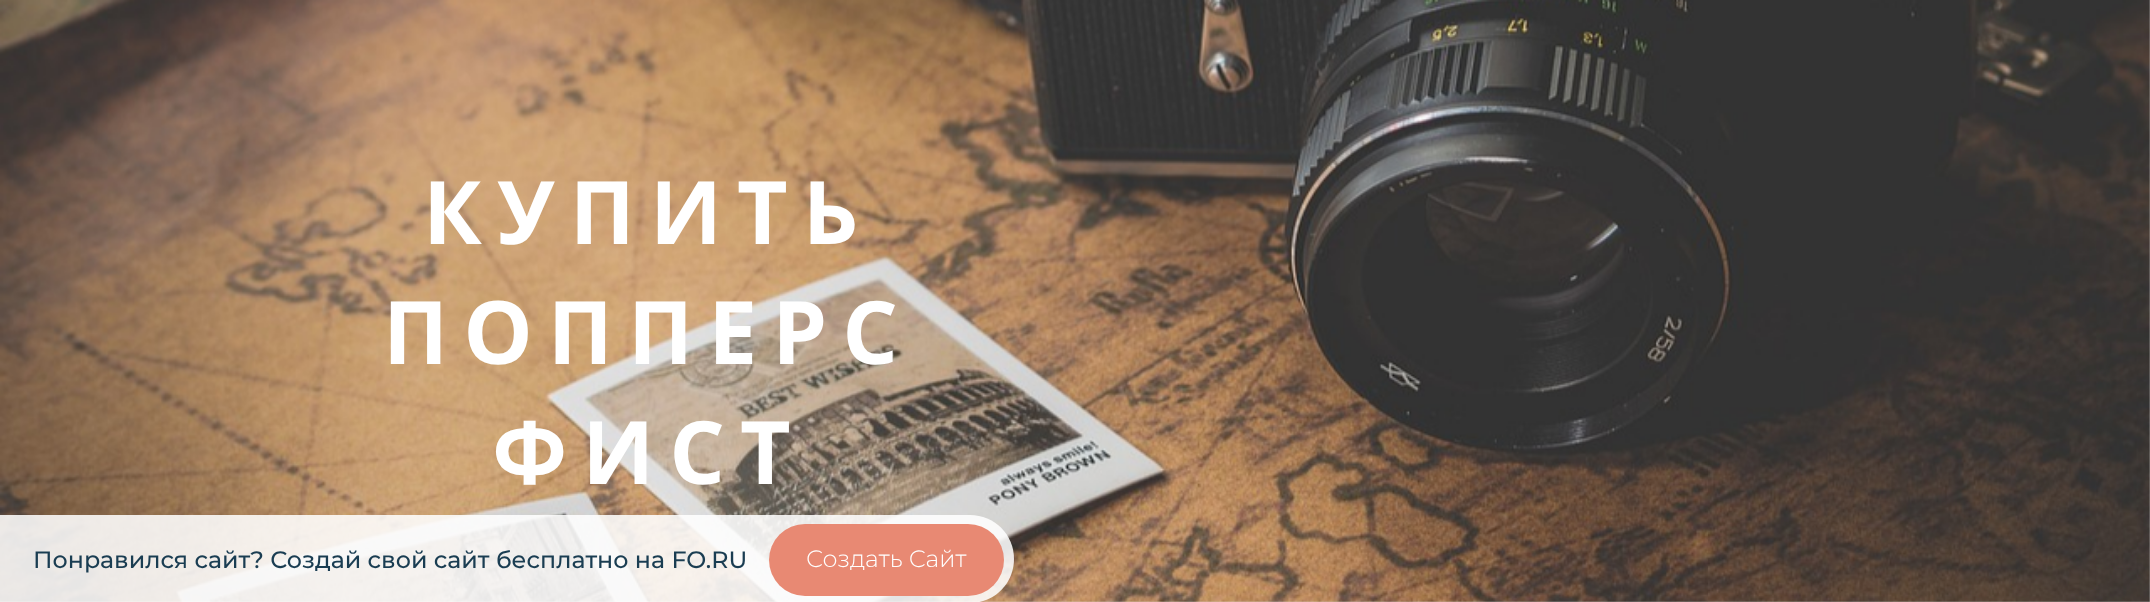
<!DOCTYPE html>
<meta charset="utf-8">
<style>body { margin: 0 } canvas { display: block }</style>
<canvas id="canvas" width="2150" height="602"></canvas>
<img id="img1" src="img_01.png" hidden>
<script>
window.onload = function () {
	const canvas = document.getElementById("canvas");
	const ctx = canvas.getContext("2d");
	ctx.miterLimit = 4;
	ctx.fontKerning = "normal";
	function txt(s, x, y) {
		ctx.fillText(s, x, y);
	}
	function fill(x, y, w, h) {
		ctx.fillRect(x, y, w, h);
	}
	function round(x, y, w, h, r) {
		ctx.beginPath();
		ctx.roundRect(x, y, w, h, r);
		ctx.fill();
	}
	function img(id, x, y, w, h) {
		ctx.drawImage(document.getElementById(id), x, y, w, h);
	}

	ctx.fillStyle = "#FFFFFF";
	fill(0, 0, 2150, 602);
	img("img1", 0, 0, 2150, 602);
	ctx.fillStyle = "rgba(255, 255, 255, 0.87)";
	ctx.beginPath();
	ctx.moveTo(0, 515);
	ctx.lineTo(970, 515);
	ctx.bezierCurveTo(994.5, 515, 1014, 534.5, 1014, 559);
	ctx.bezierCurveTo(1014, 583.5, 994.5, 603, 970, 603);
	ctx.lineTo(0, 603);
	ctx.closePath();
	ctx.fill();
	ctx.fillStyle = "#E88973";
	round(769, 524, 235, 72, 36);
	ctx.letterSpacing = "15px";
	ctx.font = "bold 87.5px Open Sans";
	ctx.fillStyle = "#FFFFFF";
	txt("КУПИТЬ", 423, 244);
	txt("ПОППЕРС", 383, 364);
	txt("ФИСТ", 492, 484);
	ctx.letterSpacing = "0px";
	ctx.font = "500 23.75px Montserrat";
	ctx.fillStyle = "#1A3D52";
	txt("Понравился сайт? Создай свой сайт бесплатно на FO.RU", 33, 568);
	ctx.font = "300 23.75px Montserrat";
	ctx.fillStyle = "#FFFFFF";
	txt("Создать Сайт", 806, 567);
};
</script>
